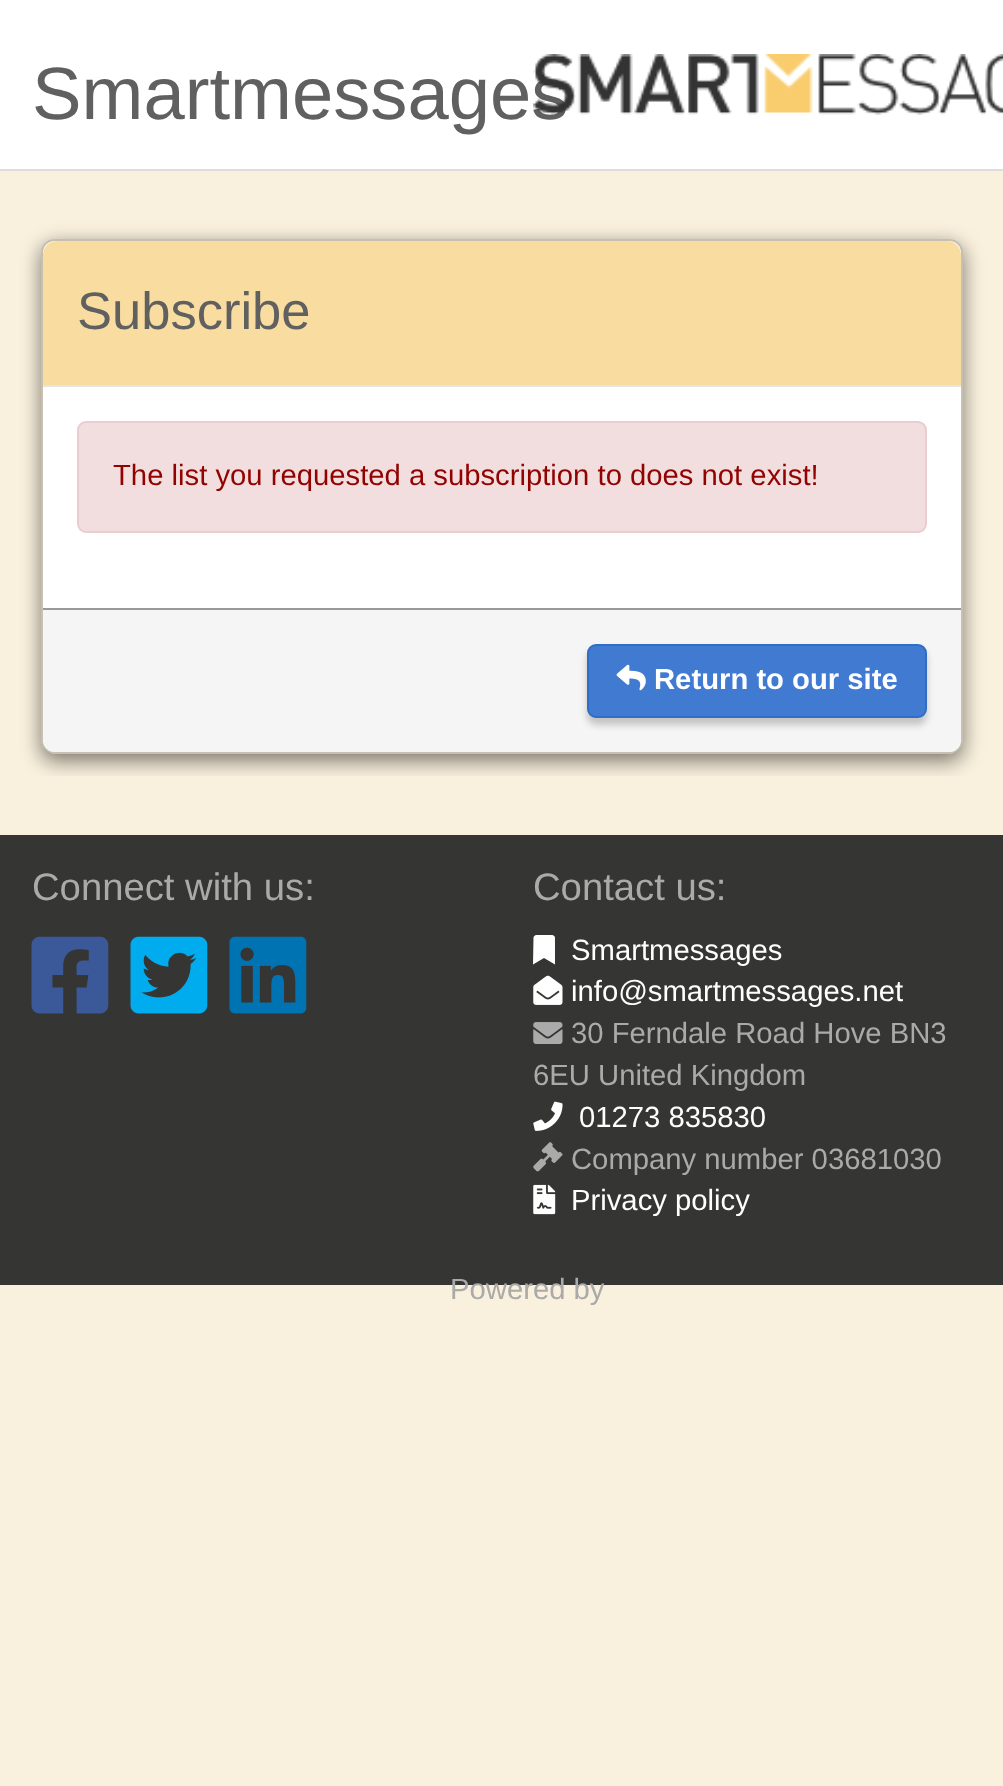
<!DOCTYPE html>
<meta charset="utf-8">
<style>body { margin: 0 } canvas { display: block }</style>
<canvas id="canvas" width="1003" height="1786"></canvas>
<img id="img1" src="img_02.png" hidden>
<img id="img2" src="img_03.png" hidden>
<img id="img3" src="img_04.png" hidden>
<img id="img4" src="img_05.png" hidden>
<img id="img5" src="img_06.png" hidden>
<img id="img6" src="img_07.png" hidden>
<img id="img7" src="img_08.png" hidden>
<img id="img8" src="img_09.png" hidden>
<img id="img9" src="img_10.png" hidden>
<img id="img10" src="img_01.png" hidden>
<script>
window.onload = function () {
	const canvas = document.getElementById("canvas");
	const ctx = canvas.getContext("2d");
	ctx.miterLimit = 4;
	ctx.fontKerning = "normal";
	function txt(s, x, y) {
		ctx.fillText(s, x, y);
	}
	function fill(x, y, w, h) {
		ctx.fillRect(x, y, w, h);
	}
	function round(x, y, w, h, r) {
		ctx.beginPath();
		ctx.roundRect(x, y, w, h, r);
		ctx.fill();
	}
	function img(id, x, y, w, h) {
		ctx.drawImage(document.getElementById(id), x, y, w, h);
	}

	ctx.fillStyle = "#F9F0DD";
	fill(0, 0, 1003, 1786);
	ctx.fillStyle = "#FFFFFF";
	fill(0, 0, 1003, 169);
	ctx.fillStyle = "#DDDDDD";
	fill(0, 169, 1003, 2);
	ctx.save();
	ctx.beginPath();
	ctx.rect(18, 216, 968, 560);
	ctx.clip();
	ctx.beginPath();
	ctx.moveTo(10, 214);
	ctx.lineTo(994, 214);
	ctx.lineTo(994, 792);
	ctx.lineTo(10, 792);
	ctx.closePath();
	ctx.moveTo(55, 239);
	ctx.lineTo(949, 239);
	ctx.bezierCurveTo(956.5, 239, 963, 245.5, 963, 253);
	ctx.lineTo(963, 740);
	ctx.bezierCurveTo(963, 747.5, 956.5, 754, 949, 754);
	ctx.lineTo(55, 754);
	ctx.bezierCurveTo(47.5, 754, 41, 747.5, 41, 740);
	ctx.lineTo(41, 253);
	ctx.bezierCurveTo(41, 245.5, 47.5, 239, 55, 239);
	ctx.closePath();
	ctx.clip("evenodd");
	ctx.fillStyle = "rgba(0, 0, 0, 0.5)";
	ctx.filter = "blur(10px)";
	ctx.beginPath();
	ctx.roundRect(41, 245, 922, 516, 14);
	ctx.fill();
	ctx.filter = "none";
	ctx.restore();
	ctx.fillStyle = "#FFFFFF";
	round(43, 241, 918, 511, 11);
	ctx.beginPath();
	ctx.roundRect(42, 240, 920, 513, 13);
	ctx.strokeStyle = "rgba(0, 0, 0, 0.2)";
	ctx.lineWidth = 2;
	ctx.stroke();
	ctx.fillStyle = "#F9DDA0";
	ctx.beginPath();
	ctx.roundRect(43, 241, 918, 146, [14, 14, 0, 0]);
	ctx.fill();
	ctx.fillStyle = "#E5E5E5";
	fill(43, 385, 918, 2);
	ctx.fillStyle = "#F2DEDE";
	ctx.beginPath();
	ctx.roundRect(78, 422, 848, 110, 8);
	ctx.fill();
	ctx.strokeStyle = "#EBCCD1";
	ctx.stroke();
	ctx.fillStyle = "#F5F5F5";
	ctx.beginPath();
	ctx.roundRect(43, 608, 918, 144, [0, 0, 14, 14]);
	ctx.fill();
	ctx.fillStyle = "#999999";
	fill(43, 608, 918, 2);
	ctx.fillStyle = "rgba(0, 0, 0, 0.2)";
	ctx.filter = "blur(3.5px)";
	ctx.beginPath();
	ctx.roundRect(587, 650, 340, 75, 9);
	ctx.fill();
	ctx.filter = "none";
	ctx.fillStyle = "#407AD1";
	ctx.beginPath();
	ctx.roundRect(588, 645, 338, 72, 8);
	ctx.fill();
	ctx.strokeStyle = "#306DC7";
	ctx.stroke();
	img("img1", 616, 664, 30, 27);
	ctx.fillStyle = "#353534";
	fill(0, 835, 1003, 450);
	img("img2", 31, 936, 78, 78);
	img("img3", 130, 936, 78, 78);
	img("img4", 229, 936, 78, 78);
	ctx.fillStyle = "#FFFFFF";
	ctx.beginPath();
	ctx.moveTo(533, 964.5);
	ctx.lineTo(533.5, 937.5);
	ctx.bezierCurveTo(534, 934.5, 537, 935, 538.5, 935);
	ctx.lineTo(549.5, 935);
	ctx.bezierCurveTo(551.5, 935, 554.5, 934.5, 555, 937.5);
	ctx.lineTo(555, 964.5);
	ctx.lineTo(544, 958);
	ctx.closePath();
	ctx.fill();
	img("img5", 533, 975, 30, 30);
	img("img6", 533, 1022, 30, 22);
	img("img7", 533, 1101, 30, 30);
	img("img8", 533, 1142, 30, 30);
	img("img9", 533, 1184, 23, 31);
	ctx.font = "74.25px Liberation Sans";
	ctx.fillStyle = "#606060";
	txt("Smartmessages", 32, 119);
	img("img10", 533, 54, 470, 61);
	ctx.font = "52.5px Liberation Sans";
	txt("Subscribe", 77, 329);
	ctx.font = "29.25px Liberation Sans";
	ctx.fillStyle = "#900300";
	txt("The list you requested a subscription to does not exist!", 113, 485);
	ctx.font = "bold 29.25px Liberation Sans";
	ctx.fillStyle = "#FFFFFF";
	txt("Return to our site", 654, 689);
	ctx.font = "38.25px Liberation Sans";
	ctx.fillStyle = "#AAAAAA";
	txt("Connect with us:", 32, 900);
	txt("Contact us:", 533, 900);
	ctx.font = "29.25px Liberation Sans";
	ctx.fillStyle = "#FFFFFF";
	txt("Smartmessages", 571, 960);
	txt("info@smartmessages.net", 571, 1001);
	ctx.fillStyle = "#AAAAAA";
	txt("30 Ferndale Road Hove BN3", 571, 1043);
	txt("6EU United Kingdom", 533, 1085);
	ctx.fillStyle = "#FFFFFF";
	txt("01273 835830", 579, 1127);
	ctx.fillStyle = "#AAAAAA";
	txt("Company number 03681030", 571, 1169);
	ctx.fillStyle = "#FFFFFF";
	txt("Privacy policy", 571, 1210);
	ctx.fillStyle = "#AAAAAA";
	txt("Powered by", 450, 1299);
};
</script>
